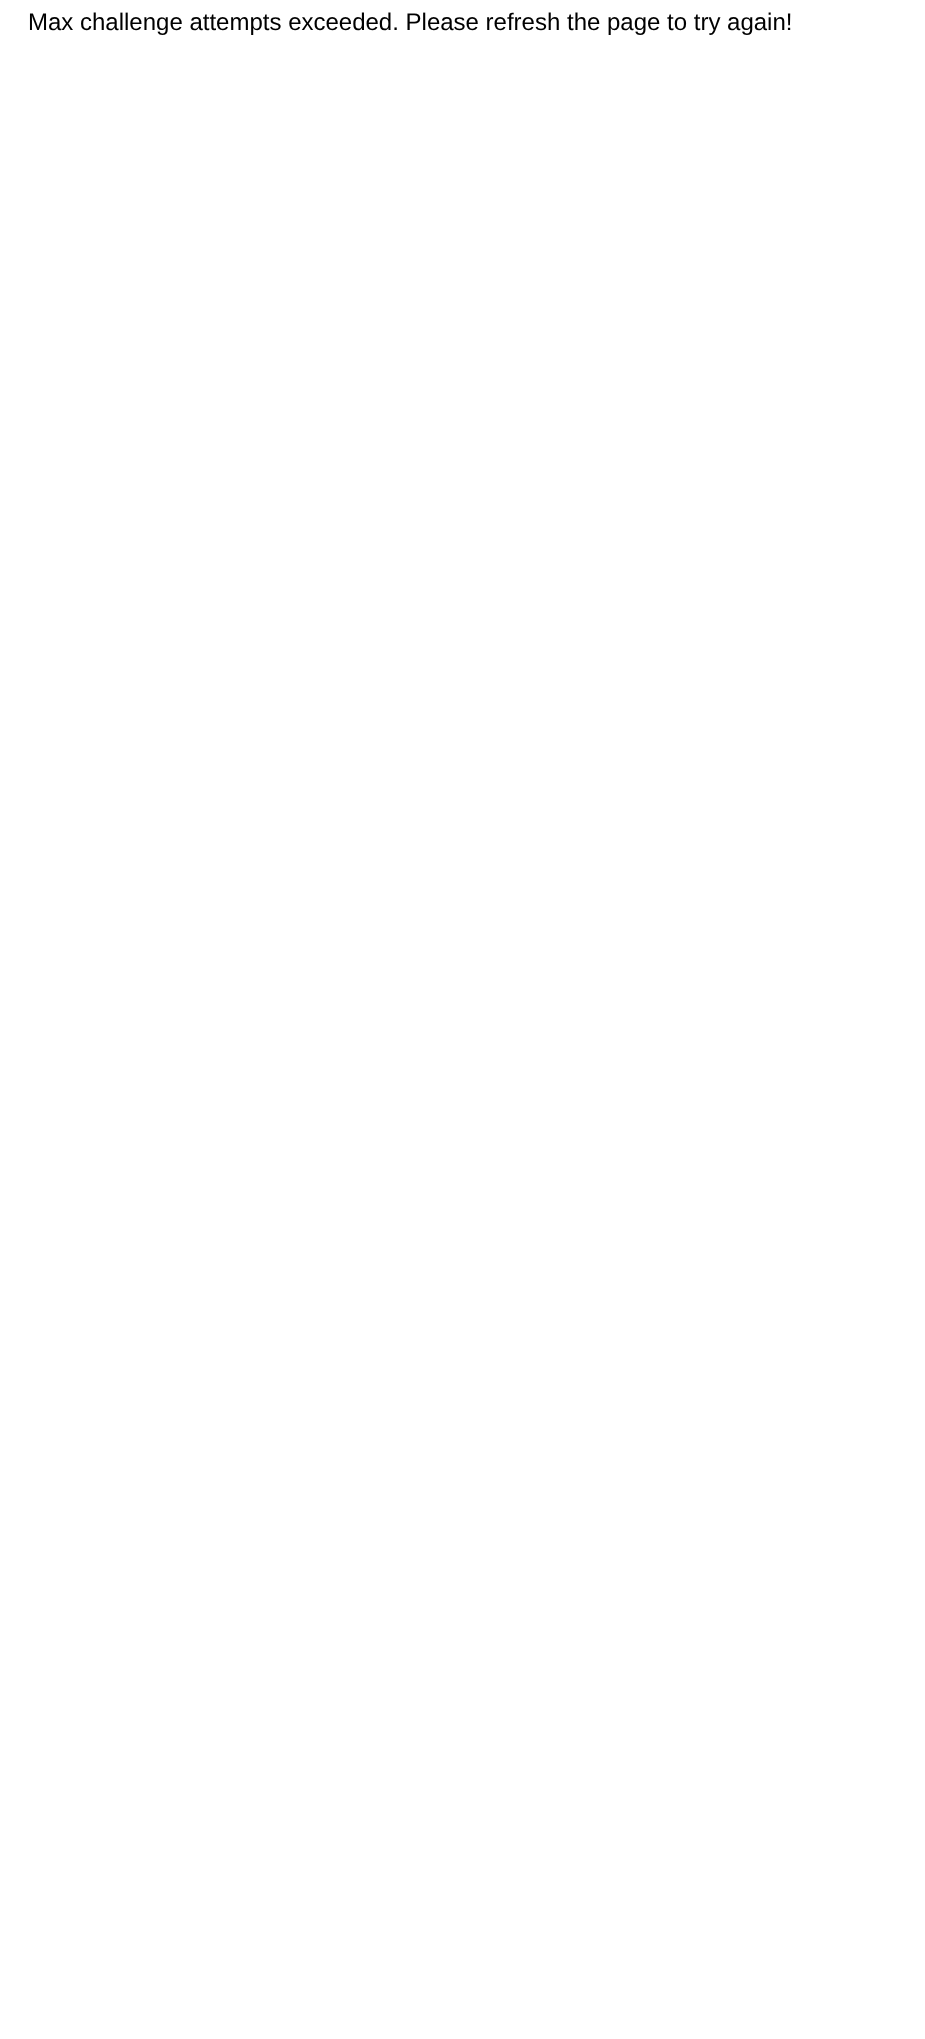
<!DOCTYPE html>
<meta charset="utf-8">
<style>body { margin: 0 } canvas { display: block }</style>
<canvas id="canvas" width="925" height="2039"></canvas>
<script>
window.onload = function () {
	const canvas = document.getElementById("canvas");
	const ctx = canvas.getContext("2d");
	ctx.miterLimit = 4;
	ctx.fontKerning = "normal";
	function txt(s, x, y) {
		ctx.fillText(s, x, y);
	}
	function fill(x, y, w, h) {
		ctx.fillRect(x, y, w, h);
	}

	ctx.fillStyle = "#FFFFFF";
	fill(0, 0, 925, 2039);
	ctx.font = "24px Liberation Sans";
	ctx.fillStyle = "#000000";
	txt("Max challenge attempts exceeded. Please refresh the page to try again!", 28, 30);
};
</script>
